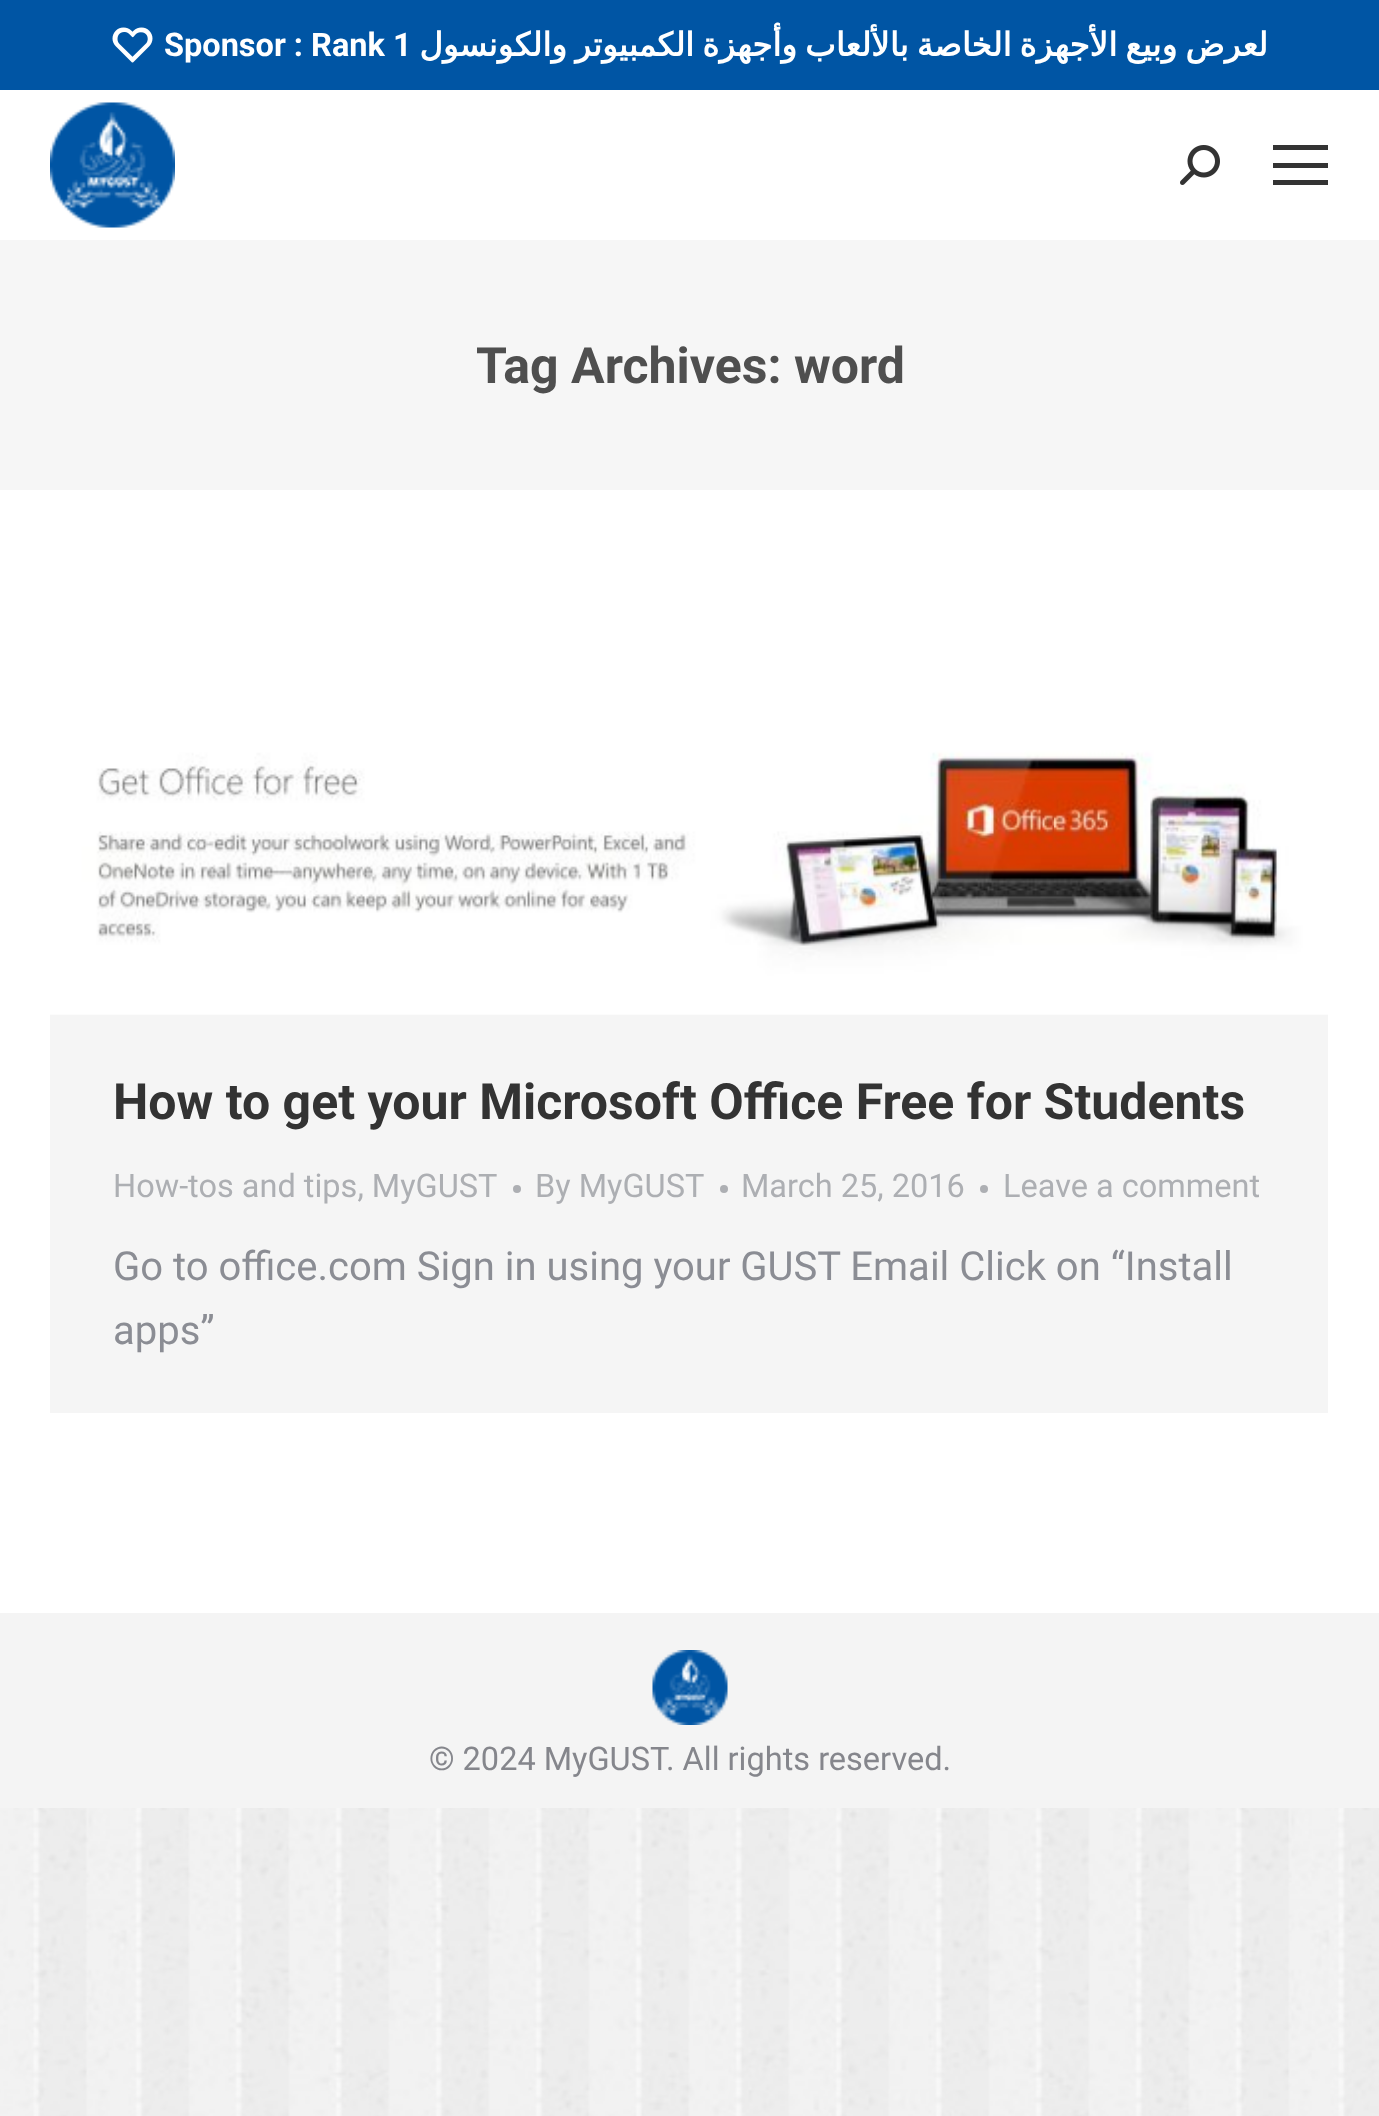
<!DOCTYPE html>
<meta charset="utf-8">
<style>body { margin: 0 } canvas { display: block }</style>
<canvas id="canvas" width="1379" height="2116"></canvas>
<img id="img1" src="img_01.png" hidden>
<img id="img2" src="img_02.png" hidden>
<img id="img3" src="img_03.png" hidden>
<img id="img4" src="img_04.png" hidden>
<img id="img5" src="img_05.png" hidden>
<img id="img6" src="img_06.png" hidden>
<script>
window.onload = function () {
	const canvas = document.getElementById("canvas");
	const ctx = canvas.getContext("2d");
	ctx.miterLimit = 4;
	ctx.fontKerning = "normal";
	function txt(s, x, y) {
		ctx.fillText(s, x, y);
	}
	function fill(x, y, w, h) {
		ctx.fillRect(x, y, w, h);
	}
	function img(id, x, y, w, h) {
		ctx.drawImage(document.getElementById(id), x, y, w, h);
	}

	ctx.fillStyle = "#FFFFFF";
	fill(0, 0, 1379, 2116);
	img("img1", 0, 1808, 1379, 308);
	ctx.fillStyle = "#0055A4";
	fill(0, 0, 1379, 90);
	img("img2", 112, 27, 41, 36);
	img("img3", 50, 102, 125, 126);
	img("img4", 1180, 145, 40, 40);
	ctx.fillStyle = "#333333";
	fill(1273, 145, 55, 5);
	fill(1273, 163, 55, 5);
	fill(1273, 180, 55, 5);
	ctx.fillStyle = "#F6F6F6";
	fill(0, 240, 1379, 250);
	ctx.fillStyle = "#F5F5F5";
	fill(50, 1013, 1278, 400);
	img("img5", 50, 690, 1278, 325);
	ctx.fillStyle = "#ADAFB3";
	ctx.beginPath();
	ctx.arc(517, 1189, 4, 0, Math.PI * 2);
	ctx.fill();
	ctx.beginPath();
	ctx.arc(724, 1189, 4, 0, Math.PI * 2);
	ctx.fill();
	ctx.beginPath();
	ctx.arc(984, 1189, 4, 0, Math.PI * 2);
	ctx.fill();
	ctx.fillStyle = "#F4F4F4";
	fill(0, 1613, 1379, 195);
	img("img6", 652, 1650, 76, 75);
	ctx.font = "bold 32.5px Roboto";
	ctx.fillStyle = "#FFFFFF";
	txt("Sponsor : Rank 1", 164, 56);
	ctx.wordSpacing = "-2.25px";
	ctx.direction = "rtl";
	ctx.font = "bold 32.5px DejaVu Sans";
	txt("لعرض وبيع الأجهزة الخاصة بالألعاب وأجهزة الكمبيوتر والكونسول", 1268, 56);
	ctx.wordSpacing = "0px";
	ctx.direction = "ltr";
	ctx.font = "bold 50px Roboto";
	ctx.fillStyle = "#4F4F4F";
	txt("Tag Archives: word", 476, 383);
	ctx.fillStyle = "#333333";
	txt("How to get your Microsoft Office Free for Students", 113, 1119);
	ctx.font = "32.5px Roboto";
	ctx.fillStyle = "#ADAFB3";
	txt("How-tos and tips, MyGUST", 113, 1197);
	txt("By MyGUST", 535, 1197);
	txt("March 25, 2016", 741, 1197);
	txt("Leave a comment", 1003, 1197);
	ctx.font = "40px Roboto";
	ctx.fillStyle = "#8B8D94";
	txt("Go to office.com Sign in using your GUST Email Click on “Install", 113, 1280);
	txt("apps”", 113, 1344);
	ctx.font = "32.5px Roboto";
	ctx.fillStyle = "#85868C";
	txt("© 2024 MyGUST. All rights reserved.", 429, 1770);
};
</script>
